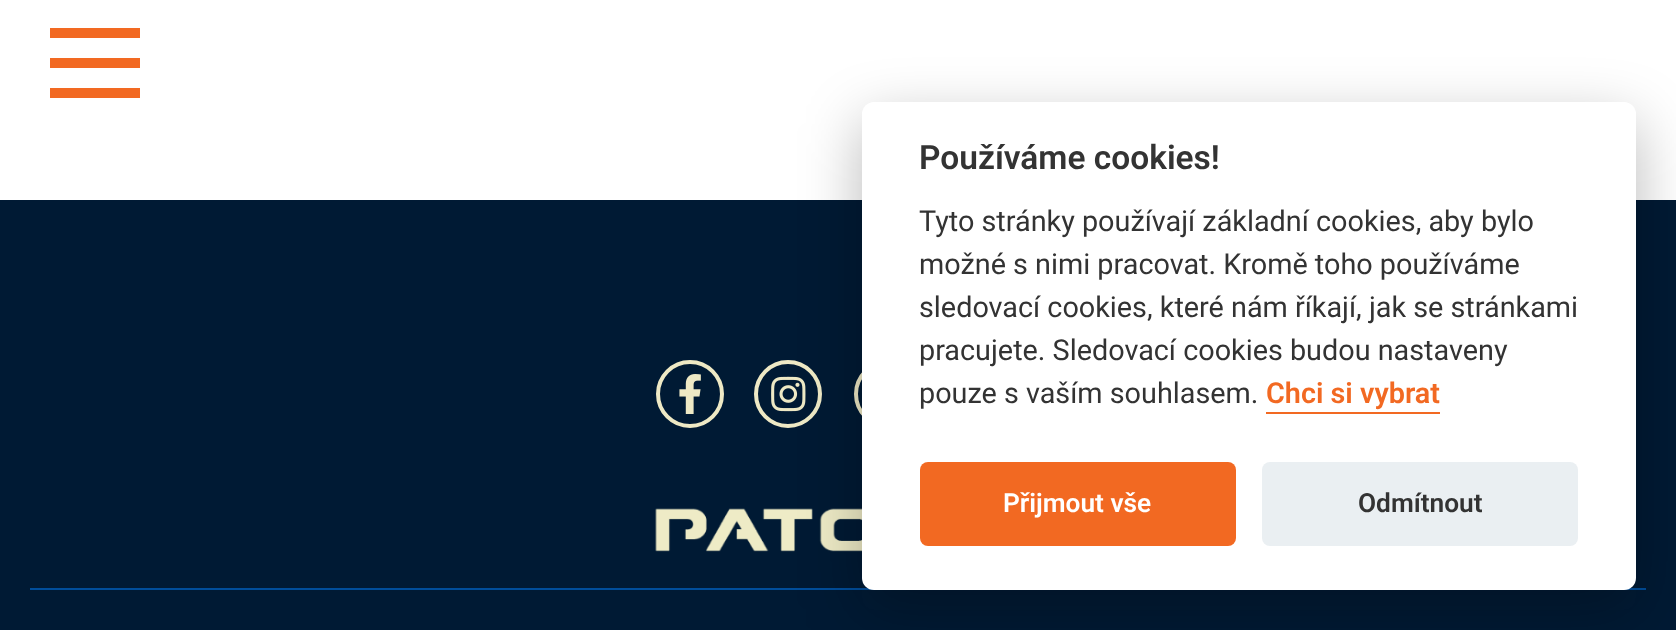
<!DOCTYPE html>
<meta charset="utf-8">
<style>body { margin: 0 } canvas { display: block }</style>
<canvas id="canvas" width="1676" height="630"></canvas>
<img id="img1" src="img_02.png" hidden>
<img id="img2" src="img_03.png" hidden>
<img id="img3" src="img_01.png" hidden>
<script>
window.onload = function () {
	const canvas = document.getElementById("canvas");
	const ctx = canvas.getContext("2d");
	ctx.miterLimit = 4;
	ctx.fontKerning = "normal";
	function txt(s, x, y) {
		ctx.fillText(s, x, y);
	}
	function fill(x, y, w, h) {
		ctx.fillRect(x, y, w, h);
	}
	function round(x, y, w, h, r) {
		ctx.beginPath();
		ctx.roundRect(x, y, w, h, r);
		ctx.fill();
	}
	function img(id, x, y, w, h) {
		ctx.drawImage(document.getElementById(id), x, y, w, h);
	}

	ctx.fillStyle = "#FFFFFF";
	fill(0, 0, 1676, 630);
	ctx.fillStyle = "#F26922";
	fill(50, 28, 90, 10);
	fill(50, 58, 90, 10);
	fill(50, 88, 90, 10);
	ctx.fillStyle = "#001A34";
	fill(0, 200, 1676, 430);
	ctx.beginPath();
	ctx.arc(788, 394, 32, 0, Math.PI * 2);
	ctx.strokeStyle = "#EEE9C5";
	ctx.lineWidth = 4;
	ctx.stroke();
	ctx.beginPath();
	ctx.arc(888, 394, 32, 0, Math.PI * 2);
	ctx.stroke();
	img("img1", 771, 376, 35, 36);
	img("img2", 655, 508, 207, 44);
	ctx.fillStyle = "#004D9A";
	fill(30, 588, 1616, 2);
	ctx.fillStyle = "rgba(2, 2, 3, 0.28)";
	ctx.filter = "blur(30px)";
	ctx.beginPath();
	ctx.roundRect(862, 122, 774, 488, 12);
	ctx.fill();
	ctx.filter = "none";
	ctx.fillStyle = "#FFFFFF";
	round(862, 102, 774, 488, 12);
	ctx.fillStyle = "#F26922";
	fill(1266, 412, 174, 2);
	round(920, 462, 316, 84, 8);
	ctx.fillStyle = "#EAEFF2";
	round(1262, 462, 316, 84, 8);
	ctx.beginPath();
	ctx.arc(690, 394, 32, 0, Math.PI * 2);
	ctx.stroke();
	img("img3", 679, 374, 22, 40);
	ctx.font = "600 33.5px Roboto";
	ctx.fillStyle = "#333333";
	txt("Používáme cookies!", 919, 169);
	ctx.font = "28.8px Roboto";
	txt("Tyto stránky používají základní cookies, aby bylo", 919, 231);
	txt("možné s nimi pracovat. Kromě toho používáme", 919, 274);
	txt("sledovací cookies, které nám říkají, jak se stránkami", 919, 317);
	txt("pracujete. Sledovací cookies budou nastaveny", 919, 360);
	txt("pouze s vaším souhlasem.", 919, 403);
	ctx.font = "600 28.8px Roboto";
	ctx.fillStyle = "#F26922";
	txt("Chci si vybrat", 1266, 403);
	ctx.font = "600 26.25px Roboto";
	ctx.fillStyle = "#FFFFFF";
	txt("Přijmout vše", 1003, 512);
	ctx.fillStyle = "#333333";
	txt("Odmítnout", 1358, 512);
};
</script>
